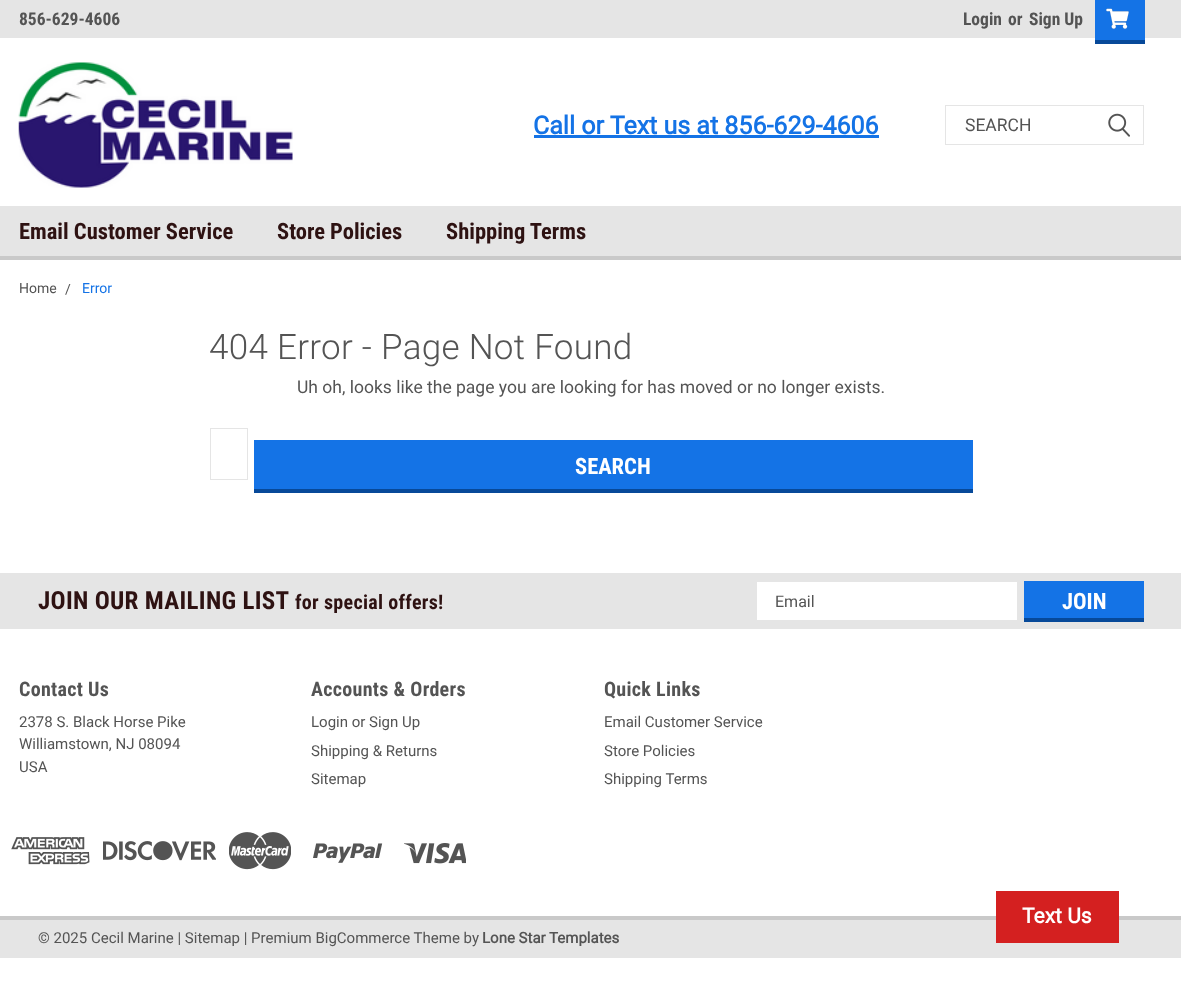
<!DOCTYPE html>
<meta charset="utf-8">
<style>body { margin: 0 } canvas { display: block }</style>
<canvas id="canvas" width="1181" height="1005"></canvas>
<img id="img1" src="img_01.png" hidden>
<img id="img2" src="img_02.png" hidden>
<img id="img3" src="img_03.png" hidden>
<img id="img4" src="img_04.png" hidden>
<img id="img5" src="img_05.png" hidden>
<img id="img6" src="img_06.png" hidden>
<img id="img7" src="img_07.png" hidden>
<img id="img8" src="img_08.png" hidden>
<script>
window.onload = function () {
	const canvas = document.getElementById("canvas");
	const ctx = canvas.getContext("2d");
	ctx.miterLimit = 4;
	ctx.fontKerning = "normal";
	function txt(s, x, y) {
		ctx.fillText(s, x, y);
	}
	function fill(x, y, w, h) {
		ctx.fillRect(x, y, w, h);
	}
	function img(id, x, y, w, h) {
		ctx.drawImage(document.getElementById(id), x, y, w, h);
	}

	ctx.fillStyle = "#FFFFFF";
	fill(0, 0, 1181, 1005);
	ctx.fillStyle = "#E5E5E5";
	fill(0, 0, 1181, 38);
	ctx.fillStyle = "#1473E6";
	fill(1095, 0, 50, 40);
	ctx.fillStyle = "#074999";
	fill(1095, 40, 50, 4);
	img("img1", 1106, 8, 23, 21);
	img("img2", 18, 62, 275, 126);
	ctx.fillStyle = "#1473E6";
	fill(534, 135, 345, 3);
	ctx.strokeStyle = "#E5E5E5";
	ctx.strokeRect(945.5, 105.5, 198, 39);
	img("img3", 1108, 113, 22, 24);
	ctx.fillStyle = "#E5E5E5";
	fill(0, 206, 1181, 50);
	ctx.fillStyle = "#C9C9C9";
	fill(0, 256, 1181, 4);
	ctx.strokeRect(210.5, 428.5, 37, 51);
	ctx.fillStyle = "#1473E6";
	fill(254, 440, 719, 49);
	ctx.fillStyle = "#074999";
	fill(254, 489, 719, 4);
	ctx.fillStyle = "#E5E5E5";
	fill(0, 573, 1181, 56);
	ctx.fillStyle = "#FFFFFF";
	fill(757, 582, 260, 38);
	ctx.fillStyle = "#1473E6";
	fill(1024, 581, 120, 37);
	ctx.fillStyle = "#074999";
	fill(1024, 618, 120, 4);
	img("img4", 11, 837, 79, 28);
	img("img5", 103, 841, 113, 20);
	img("img6", 229, 832, 62, 38);
	img("img7", 313, 843, 70, 20);
	img("img8", 404, 843, 62, 21);
	ctx.fillStyle = "#E5E5E5";
	fill(0, 920, 1181, 38);
	ctx.fillStyle = "#C9C9C9";
	fill(0, 916, 1181, 4);
	ctx.fillStyle = "#D42020";
	fill(996, 891, 123, 52);
	ctx.font = "bold 17.5px Roboto Condensed";
	ctx.fillStyle = "#545454";
	txt("856-629-4606", 19, 25);
	txt("Login", 963, 25);
	txt("or", 1008, 25);
	txt("Sign Up", 1029, 25);
	ctx.font = "bold 25px Roboto";
	ctx.fillStyle = "#1473E6";
	txt("Call or Text us at 856-629-4606", 533, 134);
	ctx.font = "17.5px Roboto";
	ctx.fillStyle = "#545454";
	txt("SEARCH", 965, 131);
	ctx.font = "bold 22.5px Roboto Condensed";
	ctx.fillStyle = "#2E1212";
	txt("Email Customer Service", 19, 239);
	txt("Store Policies", 277, 239);
	txt("Shipping Terms", 446, 239);
	ctx.font = "14px Roboto";
	ctx.fillStyle = "#545454";
	txt("Home", 19, 293);
	txt("/", 65, 294);
	ctx.fillStyle = "#1473E6";
	txt("Error", 82, 293);
	ctx.letterSpacing = "0.3px";
	ctx.font = "300 35px Roboto";
	ctx.fillStyle = "#545454";
	txt("404 Error - Page Not Found", 209, 359);
	ctx.letterSpacing = "0px";
	ctx.font = "17.5px Roboto";
	txt("Uh oh, looks like the page you are looking for has moved or no longer exists.", 297, 393);
	ctx.font = "bold 22.5px Roboto Condensed";
	ctx.fillStyle = "#FFFFFF";
	txt("SEARCH", 575, 474);
	ctx.letterSpacing = "0.3px";
	ctx.font = "bold 25px Roboto Condensed";
	ctx.fillStyle = "#2E1212";
	txt("JOIN OUR MAILING LIST", 38, 609);
	ctx.font = "bold 20px Roboto Condensed";
	txt("for special offers!", 295, 609);
	ctx.letterSpacing = "0px";
	ctx.font = "16px Roboto";
	ctx.fillStyle = "#545454";
	txt("Email", 775, 607);
	ctx.font = "bold 22.5px Roboto Condensed";
	ctx.fillStyle = "#FFFFFF";
	txt("JOIN", 1062, 609);
	ctx.letterSpacing = "0.3px";
	ctx.font = "bold 20px Roboto Condensed";
	ctx.fillStyle = "#545454";
	txt("Contact Us", 19, 696);
	ctx.letterSpacing = "0px";
	ctx.font = "15px Roboto";
	txt("2378 S. Black Horse Pike", 19, 727);
	txt("Williamstown, NJ 08094", 19, 749);
	txt("USA", 19, 772);
	ctx.letterSpacing = "0.3px";
	ctx.font = "bold 20px Roboto Condensed";
	txt("Accounts & Orders", 311, 696);
	ctx.letterSpacing = "0px";
	ctx.font = "15px Roboto";
	txt("Login or", 311, 727);
	txt("Sign Up", 369, 727);
	txt("Shipping & Returns", 311, 756);
	txt("Sitemap", 311, 784);
	ctx.letterSpacing = "0.3px";
	ctx.font = "bold 20px Roboto Condensed";
	txt("Quick Links", 604, 696);
	ctx.letterSpacing = "0px";
	ctx.font = "15px Roboto";
	txt("Email Customer Service", 604, 727);
	txt("Store Policies", 604, 756);
	txt("Shipping Terms", 604, 784);
	ctx.font = "bold 21px Roboto";
	ctx.fillStyle = "#FFFFFF";
	txt("Text Us", 1022, 923);
	ctx.font = "15px Roboto";
	ctx.fillStyle = "#545454";
	txt("© 2025 Cecil Marine | Sitemap | Premium BigCommerce Theme by", 38, 943);
	ctx.font = "bold 15px Roboto";
	txt("Lone Star Templates", 482, 943);
};
</script>
